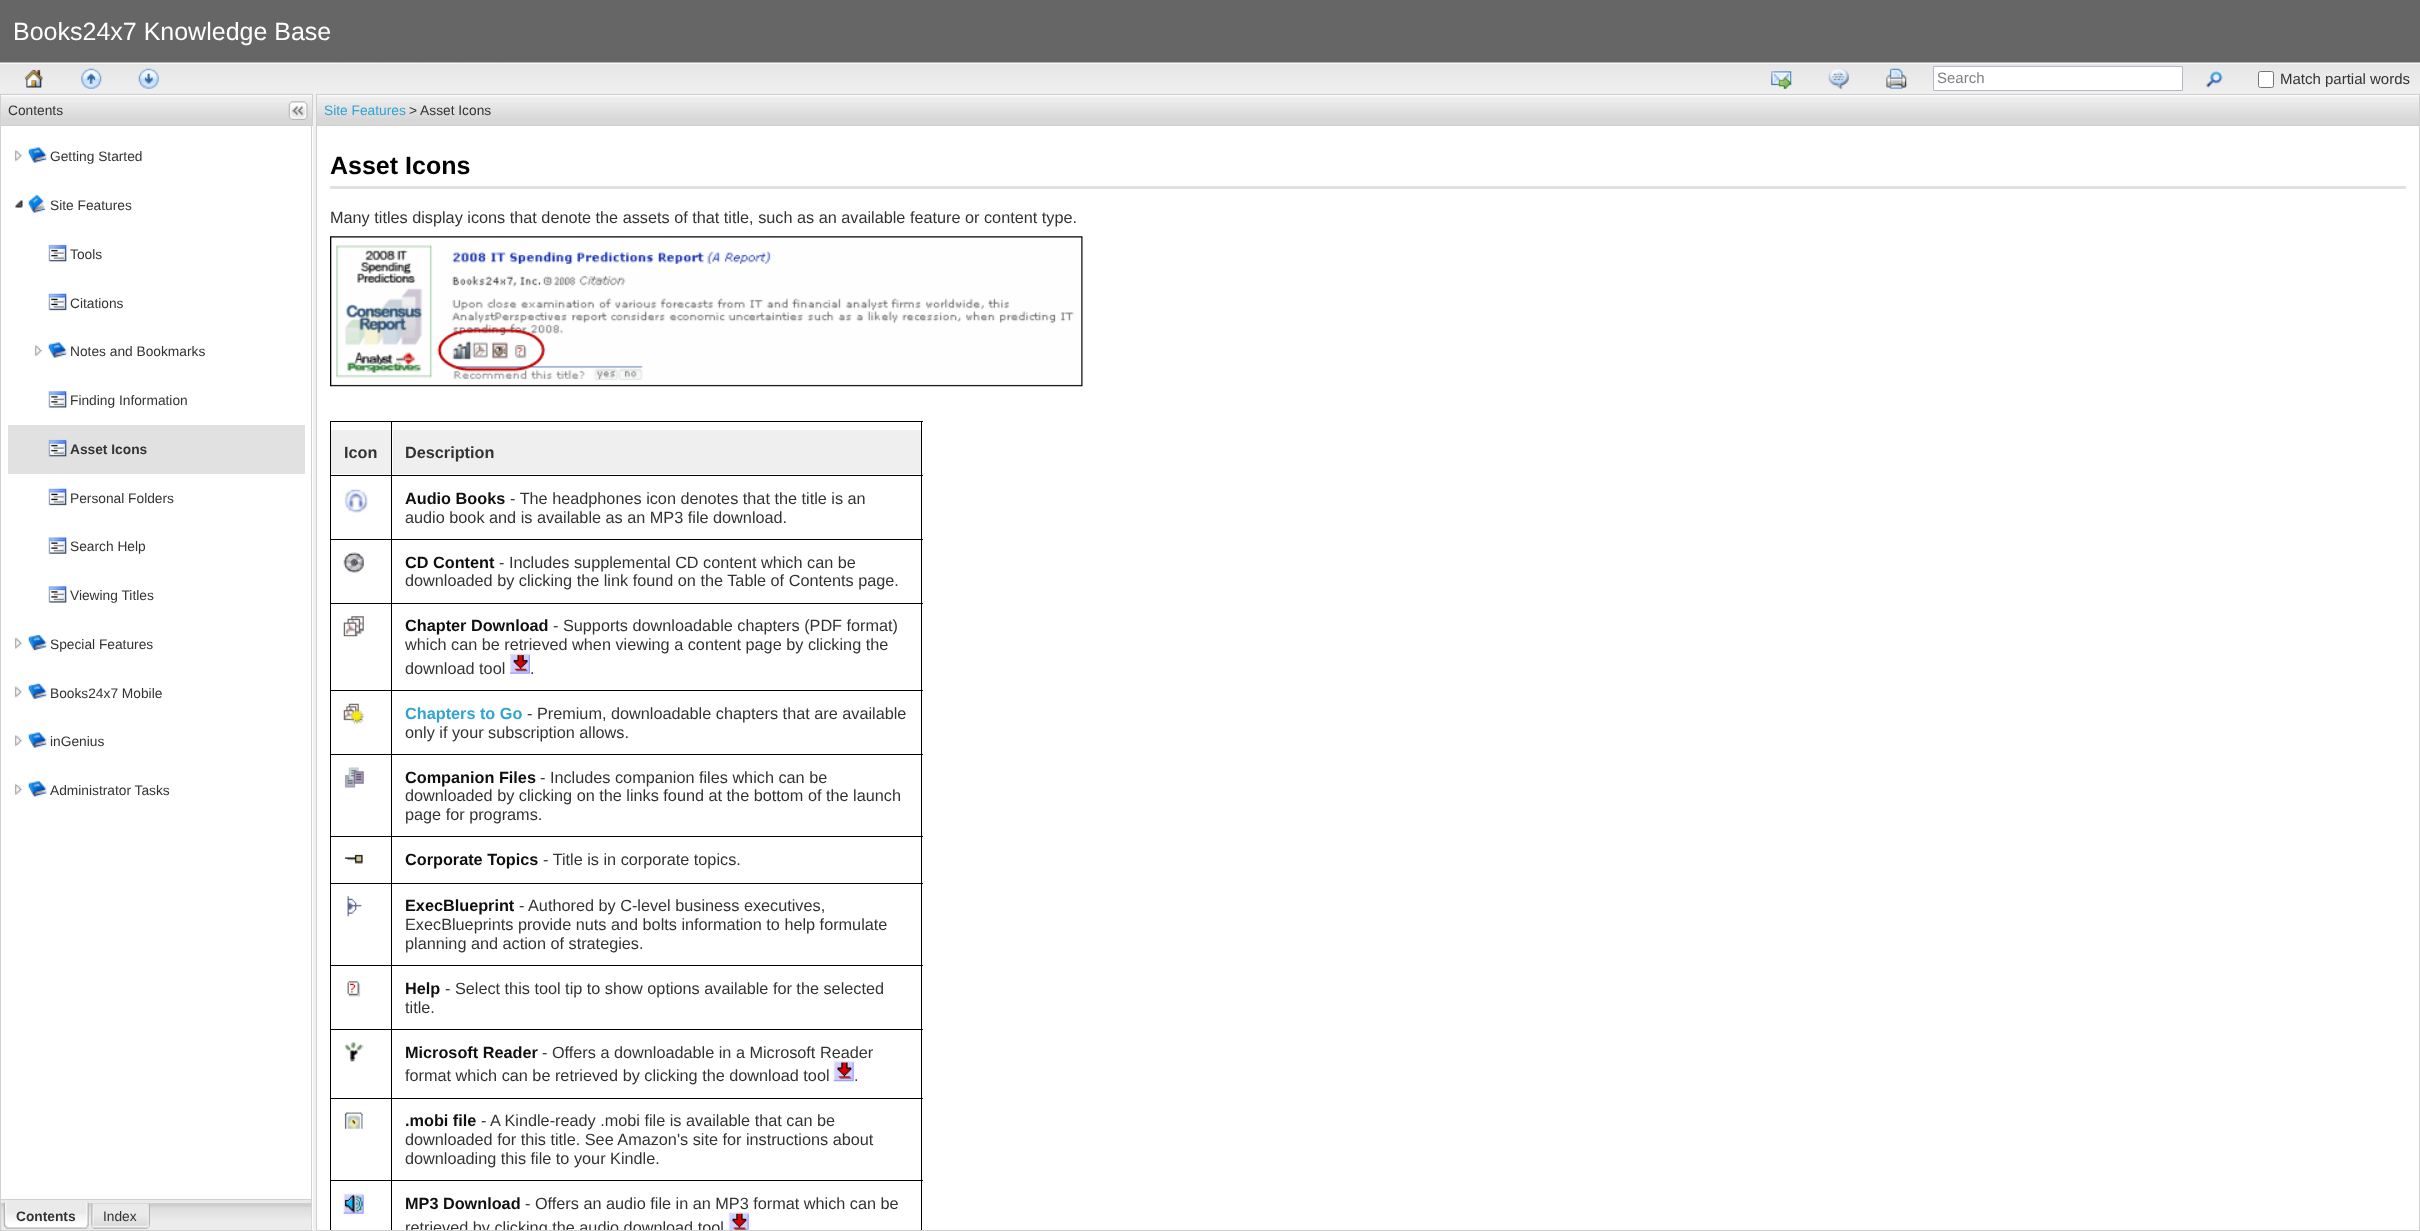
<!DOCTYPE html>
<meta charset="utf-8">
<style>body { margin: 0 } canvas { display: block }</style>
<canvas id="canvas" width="2420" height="1231"></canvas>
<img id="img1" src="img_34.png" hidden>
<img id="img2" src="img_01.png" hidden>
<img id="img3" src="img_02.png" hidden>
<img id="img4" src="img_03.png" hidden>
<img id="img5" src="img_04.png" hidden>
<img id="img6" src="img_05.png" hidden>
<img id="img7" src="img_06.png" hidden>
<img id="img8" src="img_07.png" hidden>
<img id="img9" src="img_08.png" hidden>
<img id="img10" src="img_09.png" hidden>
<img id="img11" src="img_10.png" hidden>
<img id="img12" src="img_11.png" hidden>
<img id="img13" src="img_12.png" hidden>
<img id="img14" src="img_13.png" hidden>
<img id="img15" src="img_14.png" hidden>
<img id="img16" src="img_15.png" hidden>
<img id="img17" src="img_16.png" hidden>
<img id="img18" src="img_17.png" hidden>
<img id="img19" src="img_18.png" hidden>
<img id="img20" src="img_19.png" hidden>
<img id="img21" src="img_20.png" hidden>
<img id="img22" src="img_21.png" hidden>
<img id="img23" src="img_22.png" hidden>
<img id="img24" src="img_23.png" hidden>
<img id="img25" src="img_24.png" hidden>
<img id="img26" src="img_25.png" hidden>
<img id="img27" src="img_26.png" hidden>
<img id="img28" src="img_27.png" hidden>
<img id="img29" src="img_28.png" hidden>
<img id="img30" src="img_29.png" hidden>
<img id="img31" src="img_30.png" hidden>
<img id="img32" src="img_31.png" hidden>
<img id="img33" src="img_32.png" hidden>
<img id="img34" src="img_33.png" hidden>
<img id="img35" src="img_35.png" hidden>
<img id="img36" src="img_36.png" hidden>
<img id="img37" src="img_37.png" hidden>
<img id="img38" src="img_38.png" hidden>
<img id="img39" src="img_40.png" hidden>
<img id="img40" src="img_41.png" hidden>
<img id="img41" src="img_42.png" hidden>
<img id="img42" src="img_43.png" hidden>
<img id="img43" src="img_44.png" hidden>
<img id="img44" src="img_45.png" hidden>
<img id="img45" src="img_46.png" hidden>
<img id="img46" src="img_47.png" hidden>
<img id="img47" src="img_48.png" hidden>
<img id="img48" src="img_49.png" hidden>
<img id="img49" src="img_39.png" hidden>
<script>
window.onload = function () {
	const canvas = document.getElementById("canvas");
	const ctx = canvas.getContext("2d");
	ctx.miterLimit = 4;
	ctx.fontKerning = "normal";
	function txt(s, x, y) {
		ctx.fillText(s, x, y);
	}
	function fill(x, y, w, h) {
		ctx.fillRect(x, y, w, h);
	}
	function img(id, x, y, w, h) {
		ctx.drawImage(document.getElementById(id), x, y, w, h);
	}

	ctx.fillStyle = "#F0F0F0";
	fill(0, 0, 2420, 1231);
	ctx.fillStyle = "#666666";
	fill(0, 0, 2420, 63);
	img("img1", 316, 93, 2104, 32);
	img("img2", 0, 62, 2420, 32);
	img("img3", 24, 69, 19, 19);
	img("img4", 81, 68, 21, 21);
	img("img5", 138, 68, 21, 21);
	img("img6", 1771, 71, 21, 18);
	img("img7", 1828, 69, 21, 20);
	img("img8", 1886, 68, 21, 21);
	ctx.fillStyle = "#FFFFFF";
	ctx.beginPath();
	ctx.rect(1933.5, 66.5, 249, 24);
	ctx.fill();
	ctx.strokeStyle = "#B5B8C8";
	ctx.stroke();
	img("img9", 2206, 71, 17, 17);
	ctx.beginPath();
	ctx.roundRect(2258.5, 71.5, 15, 16, 2);
	ctx.fill();
	ctx.strokeStyle = "#767676";
	ctx.stroke();
	img("img10", 0, 93, 313, 32);
	ctx.strokeStyle = "#D0D0D0";
	ctx.strokeRect(0.5, 94.5, 312, 31);
	img("img11", 288, 101, 20, 19);
	fill(1, 126, 312, 1104);
	ctx.fillStyle = "#D0D0D0";
	fill(311, 126, 1, 1105);
	fill(0, 1230, 313, 1);
	fill(0, 126, 1, 1105);
	img("img12", 14, 150, 9, 12);
	img("img13", 28, 147, 19, 16);
	img("img14", 14, 199, 9, 9);
	img("img15", 28, 194, 18, 19);
	img("img16", 48, 244, 19, 18);
	img("img17", 48, 293, 19, 18);
	img("img12", 34, 345, 9, 12);
	img("img18", 48, 342, 19, 16);
	img("img19", 48, 391, 19, 17);
	ctx.fillStyle = "#E1E1E1";
	fill(8, 425, 297, 49);
	img("img20", 48, 439, 19, 18);
	img("img21", 48, 488, 19, 18);
	img("img22", 48, 537, 19, 17);
	img("img23", 48, 586, 19, 17);
	img("img24", 14, 637, 9, 12);
	img("img25", 28, 634, 19, 17);
	img("img26", 14, 686, 9, 12);
	img("img27", 28, 683, 19, 16);
	img("img12", 14, 735, 9, 12);
	img("img13", 28, 732, 19, 16);
	img("img28", 14, 783, 9, 13);
	img("img29", 28, 781, 19, 16);
	ctx.fillStyle = "#EAEAEA";
	fill(1, 1200, 310, 3);
	ctx.fillStyle = "#D0D0D0";
	fill(1, 1199, 310, 1);
	ctx.fillStyle = "#CEDFF5";
	fill(1, 1204, 1, 26);
	img("img30", 1, 1203, 311, 27);
	ctx.fillStyle = "#D0D0D0";
	fill(1, 1203, 310, 1);
	img("img31", 3, 1202, 86, 27);
	img("img32", 85, 1202, 4, 27);
	img("img33", 91, 1203, 59, 26);
	img("img34", 91, 1203, 4, 26);
	ctx.strokeRect(316.5, 94.5, 2103, 31);
	ctx.fillStyle = "#FFFFFF";
	fill(317, 126, 2102, 1104);
	ctx.fillStyle = "#D0D0D0";
	fill(2419, 126, 1, 1105);
	fill(316, 1230, 2104, 1);
	fill(316, 126, 1, 1105);
	ctx.fillStyle = "#E1E1E1";
	fill(330, 186, 2076, 3);
	img("img35", 330, 236, 753, 151);
	ctx.fillStyle = "#010101";
	fill(330, 421, 593, 1);
	fill(921, 421, 1, 809);
	fill(330, 421, 1, 809);
	ctx.fillStyle = "#EFEFEF";
	fill(331, 430, 60, 44);
	ctx.fillStyle = "#010101";
	fill(391, 475, 532, 1);
	fill(391, 539, 532, 1);
	fill(391, 603, 532, 1);
	fill(391, 690, 532, 1);
	fill(391, 754, 532, 1);
	fill(391, 836, 532, 1);
	fill(391, 883, 532, 1);
	fill(391, 965, 532, 1);
	fill(391, 1029, 532, 1);
	fill(391, 1098, 532, 1);
	fill(391, 1180, 532, 1);
	fill(391, 1180, 1, 50);
	fill(330, 1180, 63, 1);
	fill(391, 1098, 1, 83);
	fill(330, 1098, 63, 1);
	fill(391, 1029, 1, 70);
	fill(330, 1029, 63, 1);
	fill(391, 965, 1, 65);
	fill(330, 965, 63, 1);
	fill(391, 883, 1, 83);
	fill(330, 883, 63, 1);
	fill(391, 836, 1, 48);
	fill(330, 836, 63, 1);
	fill(391, 754, 1, 84);
	fill(330, 754, 63, 1);
	fill(391, 690, 1, 65);
	fill(330, 690, 63, 1);
	fill(391, 603, 1, 88);
	fill(330, 603, 63, 1);
	fill(391, 539, 1, 65);
	fill(330, 539, 63, 1);
	fill(391, 475, 1, 65);
	fill(330, 475, 63, 1);
	fill(391, 421, 1, 55);
	ctx.fillStyle = "#EFEFEF";
	fill(393, 430, 528, 44);
	img("img36", 344, 489, 24, 24);
	img("img37", 343, 552, 21, 21);
	img("img38", 343, 616, 21, 21);
	img("img39", 343, 703, 21, 21);
	img("img40", 344, 767, 20, 21);
	img("img41", 344, 854, 19, 10);
	img("img42", 347, 896, 15, 21);
	img("img43", 347, 981, 14, 16);
	img("img44", 344, 1042, 20, 20);
	img("img45", 833, 1061, 21, 21);
	img("img46", 344, 1112, 19, 17);
	img("img47", 343, 1193, 21, 21);
	img("img48", 728, 1212, 21, 18);
	ctx.font = "25px Liberation Sans";
	ctx.fillStyle = "#FFFFFF";
	txt("Books24x7 Knowledge Base", 13, 40);
	ctx.font = "15px Liberation Sans";
	ctx.fillStyle = "#808080";
	txt("Search", 1937, 83);
	ctx.fillStyle = "#333333";
	txt("Match partial words", 2280, 84);
	ctx.font = "13.75px Liberation Sans";
	txt("Contents", 8, 115);
	txt("Getting Started", 50, 161);
	txt("Site Features", 50, 210);
	txt("Tools", 70, 259);
	txt("Citations", 70, 308);
	txt("Notes and Bookmarks", 70, 356);
	txt("Finding Information", 70, 405);
	ctx.font = "bold 13.75px Liberation Sans";
	txt("Asset Icons", 70, 454);
	ctx.font = "13.75px Liberation Sans";
	txt("Personal Folders", 70, 503);
	txt("Search Help", 70, 551);
	txt("Viewing Titles", 70, 600);
	txt("Special Features", 50, 649);
	txt("Books24x7 Mobile", 50, 698);
	txt("inGenius", 50, 746);
	txt("Administrator Tasks", 50, 795);
	ctx.font = "bold 13.75px Liberation Sans";
	txt("Contents", 16, 1221);
	ctx.font = "13.75px Liberation Sans";
	txt("Index", 103, 1221);
	ctx.fillStyle = "#31A3D3";
	txt("Site Features", 324, 115);
	ctx.fillStyle = "#333333";
	txt("> Asset Icons", 409, 115);
	ctx.font = "bold 25px Liberation Sans";
	ctx.fillStyle = "#000000";
	txt("Asset Icons", 330, 174);
	ctx.font = "16.25px Liberation Sans";
	ctx.fillStyle = "#333333";
	txt("Many titles display icons that denote the assets of that title, such as an available feature or content type.", 330, 223);
	ctx.font = "bold 16.25px Liberation Sans";
	txt("Icon", 344, 458);
	txt("Description", 405, 458);
	ctx.fillStyle = "#0F0F0F";
	txt("Audio Books", 405, 504);
	ctx.font = "16.25px Liberation Sans";
	ctx.fillStyle = "#333333";
	txt("- The headphones icon denotes that the title is an", 510, 504);
	txt("audio book and is available as an MP3 file download.", 405, 523);
	ctx.font = "bold 16.25px Liberation Sans";
	ctx.fillStyle = "#0F0F0F";
	txt("CD Content", 405, 568);
	ctx.font = "16.25px Liberation Sans";
	ctx.fillStyle = "#333333";
	txt("- Includes supplemental CD content which can be", 499, 568);
	txt("downloaded by clicking the link found on the Table of Contents page.", 405, 586);
	ctx.font = "bold 16.25px Liberation Sans";
	ctx.fillStyle = "#0F0F0F";
	txt("Chapter Download", 405, 631);
	ctx.font = "16.25px Liberation Sans";
	ctx.fillStyle = "#333333";
	txt("- Supports downloadable chapters (PDF format)", 553, 631);
	txt("which can be retrieved when viewing a content page by clicking the", 405, 650);
	txt("download tool", 405, 674);
	img("img49", 510, 653, 20, 21);
	txt(".", 530, 674);
	ctx.font = "bold 16.25px Liberation Sans";
	ctx.fillStyle = "#31A3D3";
	txt("Chapters to Go", 405, 719);
	ctx.font = "16.25px Liberation Sans";
	ctx.fillStyle = "#333333";
	txt("- Premium, downloadable chapters that are available", 527, 719);
	txt("only if your subscription allows.", 405, 738);
	ctx.font = "bold 16.25px Liberation Sans";
	ctx.fillStyle = "#0F0F0F";
	txt("Companion Files", 405, 783);
	ctx.font = "16.25px Liberation Sans";
	ctx.fillStyle = "#333333";
	txt("- Includes companion files which can be", 540, 783);
	txt("downloaded by clicking on the links found at the bottom of the launch", 405, 801);
	txt("page for programs.", 405, 820);
	ctx.font = "bold 16.25px Liberation Sans";
	ctx.fillStyle = "#0F0F0F";
	txt("Corporate Topics", 405, 865);
	ctx.font = "16.25px Liberation Sans";
	ctx.fillStyle = "#333333";
	txt("- Title is in corporate topics.", 543, 865);
	ctx.font = "bold 16.25px Liberation Sans";
	ctx.fillStyle = "#0F0F0F";
	txt("ExecBlueprint", 405, 911);
	ctx.font = "16.25px Liberation Sans";
	ctx.fillStyle = "#333333";
	txt("-", 519, 911);
	txt("Authored by C-level business executives,", 528, 911);
	txt("ExecBlueprints provide nuts and bolts information to help formulate", 405, 930);
	txt("planning and action of strategies.", 405, 949);
	ctx.font = "bold 16.25px Liberation Sans";
	ctx.fillStyle = "#0F0F0F";
	txt("Help", 405, 994);
	ctx.font = "16.25px Liberation Sans";
	ctx.fillStyle = "#333333";
	txt("- Select this tool tip to show options available for the selected", 445, 994);
	txt("title.", 405, 1013);
	ctx.font = "bold 16.25px Liberation Sans";
	ctx.fillStyle = "#0F0F0F";
	txt("Microsoft Reader", 405, 1058);
	ctx.font = "16.25px Liberation Sans";
	ctx.fillStyle = "#333333";
	txt("- Offers a downloadable in a Microsoft Reader", 542, 1058);
	txt("format which can be retrieved by clicking the download tool", 405, 1081);
	txt(".", 854, 1081);
	ctx.font = "bold 16.25px Liberation Sans";
	ctx.fillStyle = "#0F0F0F";
	txt(".mobi file", 405, 1126);
	ctx.font = "16.25px Liberation Sans";
	ctx.fillStyle = "#333333";
	txt("-", 481, 1126);
	txt("A Kindle-ready .mobi file is available that can be", 490, 1126);
	txt("downloaded for this title. See Amazon's site for instructions about", 405, 1145);
	txt("downloading this file to your Kindle.", 405, 1164);
	ctx.font = "bold 16.25px Liberation Sans";
	ctx.fillStyle = "#0F0F0F";
	txt("MP3 Download", 405, 1209);
	ctx.font = "16.25px Liberation Sans";
	ctx.fillStyle = "#333333";
	txt("- Offers an audio file in an MP3 format which can be", 525, 1209);
	ctx.save();
	ctx.beginPath();
	ctx.rect(318, 126, 2101, 1104);
	ctx.clip();
	txt("retrieved by clicking the audio download tool", 405, 1233);
	ctx.restore();
};
</script>
